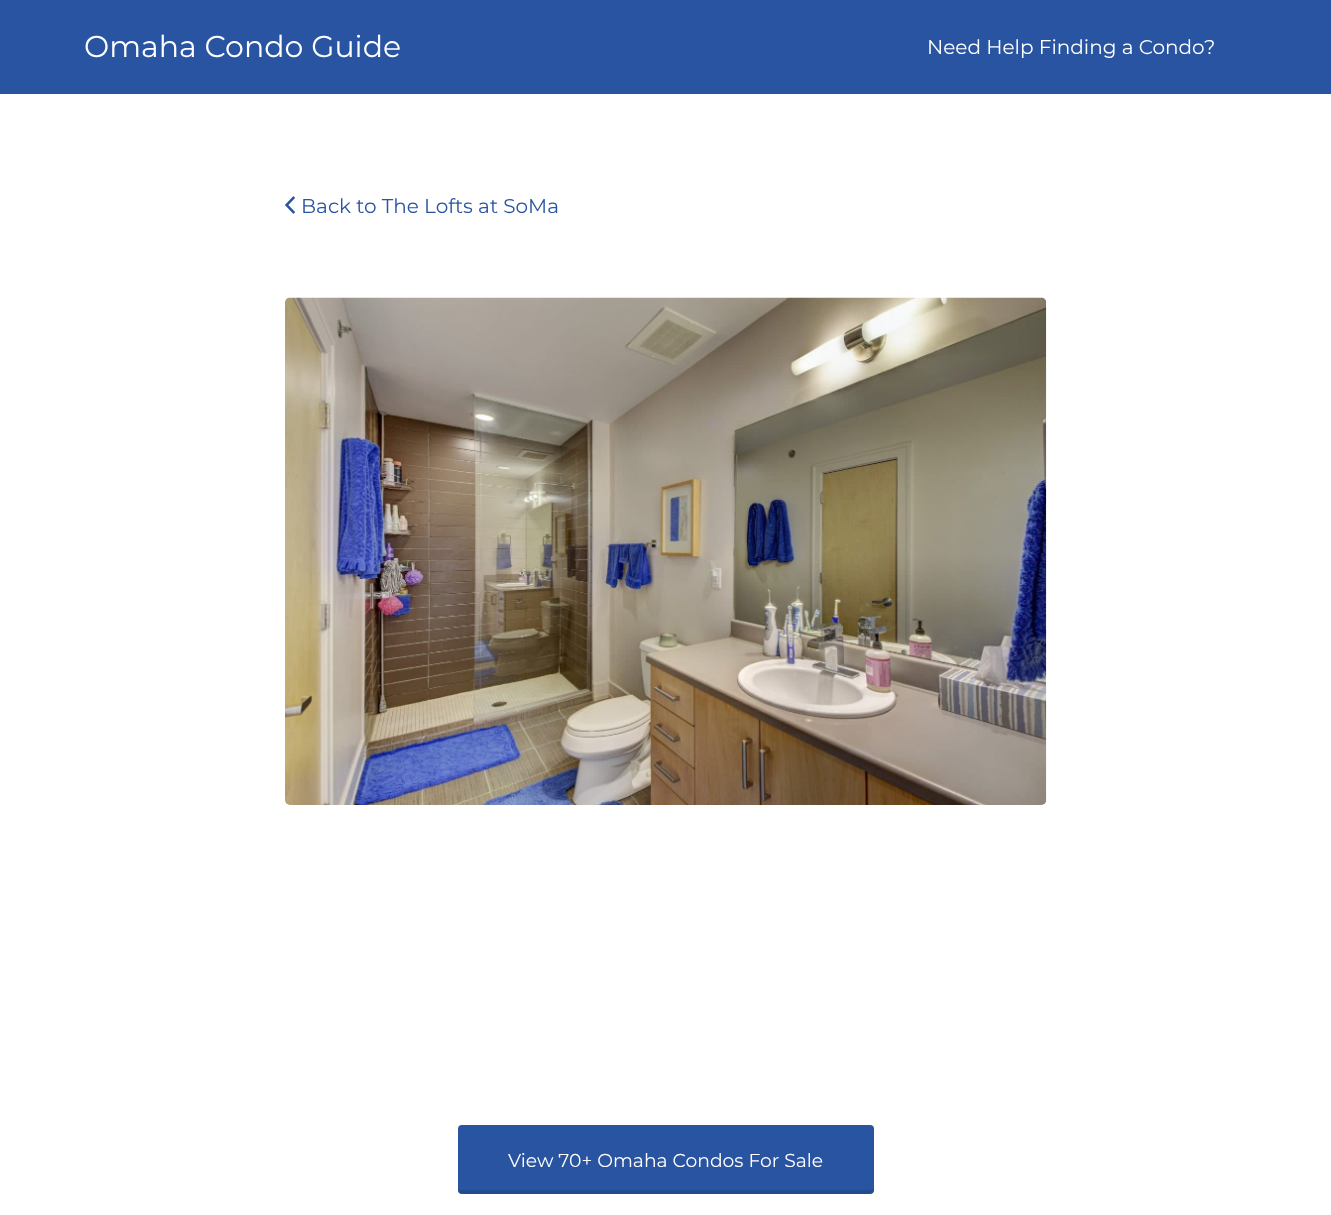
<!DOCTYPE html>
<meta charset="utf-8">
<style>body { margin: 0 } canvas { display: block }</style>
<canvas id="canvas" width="1331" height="1215"></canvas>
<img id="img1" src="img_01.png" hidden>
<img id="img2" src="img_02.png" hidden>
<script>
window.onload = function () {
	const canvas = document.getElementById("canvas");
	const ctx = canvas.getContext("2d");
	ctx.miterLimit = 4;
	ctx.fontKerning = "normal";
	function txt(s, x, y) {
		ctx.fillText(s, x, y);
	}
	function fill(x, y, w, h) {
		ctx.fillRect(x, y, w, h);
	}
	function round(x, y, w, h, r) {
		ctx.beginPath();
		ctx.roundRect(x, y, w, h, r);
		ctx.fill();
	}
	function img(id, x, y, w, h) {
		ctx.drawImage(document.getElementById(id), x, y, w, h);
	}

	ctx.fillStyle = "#FFFFFF";
	fill(0, 0, 1331, 1215);
	ctx.fillStyle = "#2854A1";
	fill(0, 0, 1331, 94);
	img("img1", 285, 196, 10, 18);
	img("img2", 285, 297, 762, 508);
	round(458, 1125, 416, 69, 4);
	ctx.fillStyle = "rgba(0, 0, 0, 0.1)";
	ctx.beginPath();
	ctx.moveTo(458, 1186);
	ctx.lineTo(458, 1190);
	ctx.bezierCurveTo(458, 1192, 460, 1194, 462, 1194);
	ctx.lineTo(870, 1194);
	ctx.bezierCurveTo(872, 1194, 874, 1192, 874, 1190);
	ctx.lineTo(874, 1186);
	ctx.bezierCurveTo(874, 1188, 872, 1190, 870, 1190);
	ctx.lineTo(461, 1190);
	ctx.bezierCurveTo(459, 1190, 458, 1188, 458, 1186);
	ctx.closePath();
	ctx.fill();
	ctx.font = "30px Montserrat";
	ctx.fillStyle = "#FFFFFF";
	txt("Omaha Condo Guide", 84, 57);
	ctx.font = "20px Montserrat";
	txt("Need Help Finding a Condo?", 927, 54);
	ctx.fillStyle = "#2854A1";
	txt("Back to The Lofts at SoMa", 301, 213);
	ctx.font = "18.75px Montserrat";
	ctx.fillStyle = "#FFFFFF";
	txt("View 70+ Omaha Condos For Sale", 508, 1167);
};
</script>
